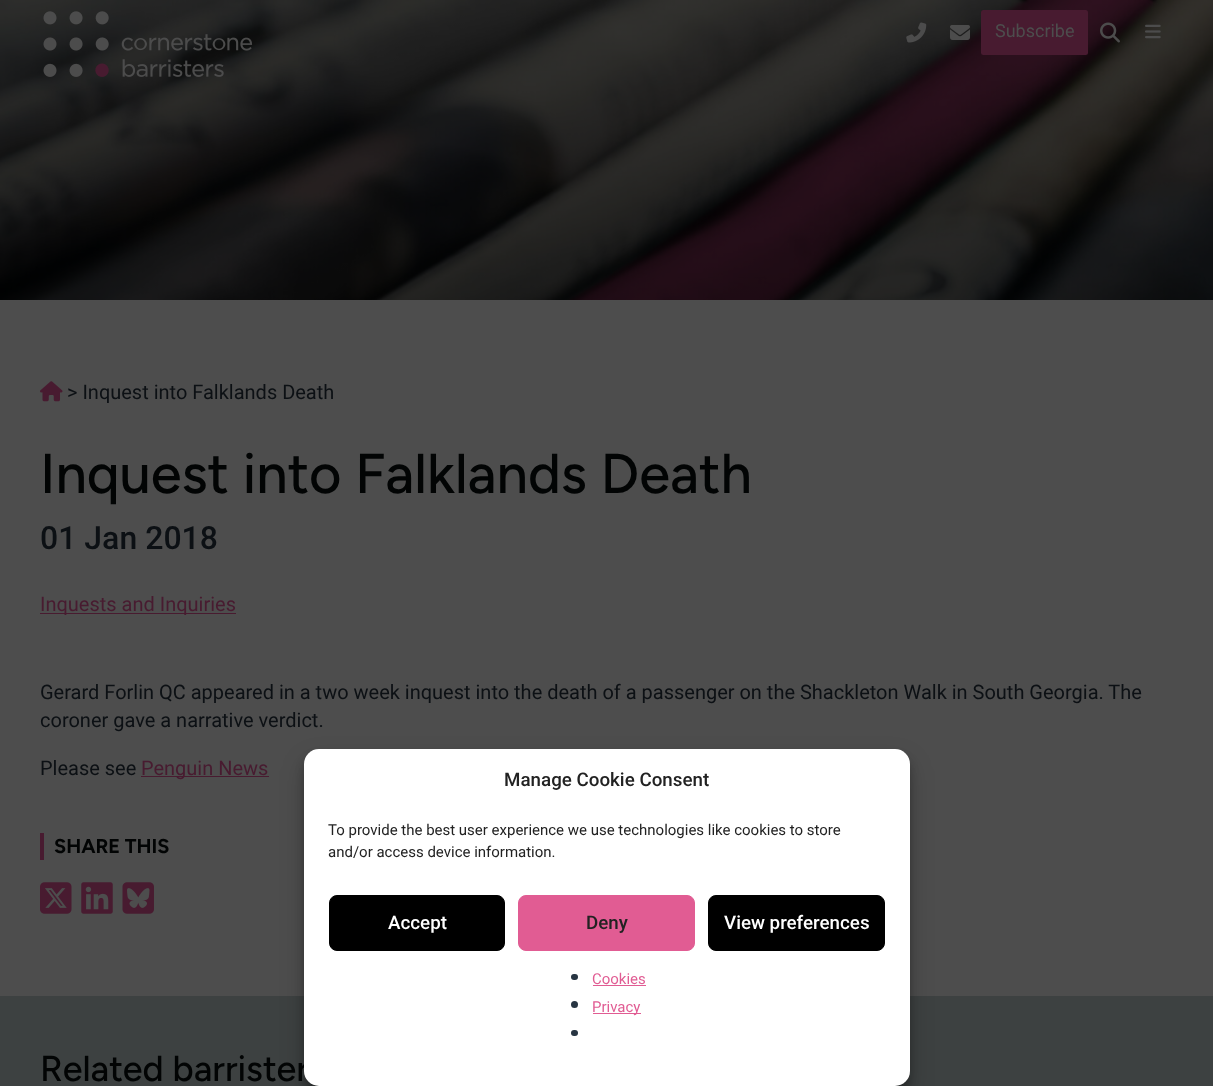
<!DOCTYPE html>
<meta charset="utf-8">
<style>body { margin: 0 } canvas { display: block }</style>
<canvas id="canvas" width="1213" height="1086"></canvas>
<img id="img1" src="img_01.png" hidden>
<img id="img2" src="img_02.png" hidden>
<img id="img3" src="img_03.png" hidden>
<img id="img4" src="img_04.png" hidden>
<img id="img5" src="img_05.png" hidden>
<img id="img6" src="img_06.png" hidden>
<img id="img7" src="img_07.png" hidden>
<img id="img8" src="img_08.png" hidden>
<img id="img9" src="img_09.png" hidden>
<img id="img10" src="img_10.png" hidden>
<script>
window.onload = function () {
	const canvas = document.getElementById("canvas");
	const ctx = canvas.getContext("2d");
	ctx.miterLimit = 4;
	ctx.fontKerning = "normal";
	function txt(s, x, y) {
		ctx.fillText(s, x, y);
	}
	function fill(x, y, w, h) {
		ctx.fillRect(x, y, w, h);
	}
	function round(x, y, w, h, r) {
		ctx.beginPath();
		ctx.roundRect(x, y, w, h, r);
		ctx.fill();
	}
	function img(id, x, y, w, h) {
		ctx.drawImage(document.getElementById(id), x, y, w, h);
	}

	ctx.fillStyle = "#4D4D4D";
	fill(0, 0, 1213, 1086);
	img("img1", 0, 0, 1213, 300);
	img("img2", 43, 11, 210, 66);
	img("img3", 906, 22, 21, 21);
	img("img4", 950, 25, 20, 15);
	ctx.fillStyle = "#481B30";
	round(981, 10, 107, 45, 2.5);
	img("img5", 1100, 22, 20, 21);
	img("img6", 1145, 24, 16, 15);
	img("img7", 40, 381, 23, 21);
	fill(40, 613, 196, 1);
	fill(141, 776, 128, 1);
	fill(40, 833, 4, 27);
	img("img8", 40, 882, 32, 32);
	img("img9", 81, 882, 32, 32);
	img("img10", 122, 882, 32, 32);
	ctx.fillStyle = "#3D4141";
	fill(0, 996, 1213, 90);
	ctx.fillStyle = "rgba(0, 0, 0, 0.23)";
	ctx.filter = "blur(4px)";
	ctx.beginPath();
	ctx.roundRect(304, 756, 606, 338, 15);
	ctx.fill();
	ctx.filter = "none";
	ctx.fillStyle = "rgba(0, 0, 0, 0.19)";
	ctx.filter = "blur(12.5px)";
	ctx.beginPath();
	ctx.roundRect(304, 761, 606, 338, 15);
	ctx.fill();
	ctx.filter = "none";
	ctx.font = "18px Roboto";
	ctx.fillStyle = "#4D4D4D";
	txt("Subscribe", 995, 37);
	ctx.font = "20px Roboto";
	ctx.fillStyle = "#0C1014";
	txt("> Inquest into Falklands Death", 67, 399);
	ctx.font = "500 56px Figtree";
	ctx.fillStyle = "#020404";
	txt("Inquest into Falklands Death", 40, 493);
	ctx.font = "500 32px Roboto";
	ctx.fillStyle = "#0C1014";
	txt("01 Jan 2018", 40, 549);
	ctx.font = "20px Roboto";
	ctx.fillStyle = "#481B30";
	txt("Inquests and Inquiries", 40, 611);
	ctx.fillStyle = "#0C1014";
	txt("Gerard Forlin QC appeared in a two week inquest into the death of a passenger on the Shackleton Walk in South Georgia. The", 40, 699);
	txt("coroner gave a narrative verdict.", 40, 727);
	txt("Please see", 40, 775);
	ctx.fillStyle = "#481B30";
	txt("Penguin News", 141, 775);
	ctx.font = "bold 20px Figtree";
	ctx.fillStyle = "#020404";
	txt("SHARE THIS", 54, 853);
	ctx.font = "500 36px Figtree";
	txt("Related barrister", 40, 1081);
	ctx.fillStyle = "#FFFFFF";
	round(304, 749, 606, 337, 15);
	ctx.font = "500 18.75px Roboto";
	ctx.fillStyle = "#222222";
	txt("Manage Cookie Consent", 504, 786);
	ctx.font = "15px Roboto";
	txt("To provide the best user experience we use technologies like cookies to store", 328, 835);
	txt("and/or access device information.", 328, 857);
	ctx.fillStyle = "#000000";
	ctx.beginPath();
	ctx.roundRect(329.5, 895.5, 175, 55, 7.5);
	ctx.fill();
	ctx.strokeStyle = "#000000";
	ctx.stroke();
	ctx.font = "500 18.75px Roboto";
	ctx.fillStyle = "#FFFFFF";
	txt("Accept", 388, 929);
	ctx.fillStyle = "#E15C93";
	ctx.beginPath();
	ctx.roundRect(518.5, 895.5, 176, 55, 7.5);
	ctx.fill();
	ctx.strokeStyle = "#E15C93";
	ctx.stroke();
	ctx.fillStyle = "#222222";
	txt("Deny", 586, 929);
	ctx.fillStyle = "#000000";
	ctx.beginPath();
	ctx.roundRect(708.5, 895.5, 176, 55, 7.5);
	ctx.fill();
	ctx.strokeStyle = "#000000";
	ctx.stroke();
	ctx.fillStyle = "#FFFFFF";
	txt("View preferences", 724, 929);
	ctx.fillStyle = "#273542";
	round(571, 974, 7, 6, 3);
	ctx.font = "15px Roboto";
	ctx.fillStyle = "#E15C93";
	txt("Cookies", 592, 984);
	fill(593, 985, 53, 1);
	ctx.fillStyle = "#273542";
	ctx.beginPath();
	ctx.arc(574.5, 1004.5, 3.5, 0, Math.PI * 2);
	ctx.fill();
	ctx.fillStyle = "#E15C93";
	fill(593, 1013, 48, 1);
	txt("Privacy", 592, 1012);
	ctx.fillStyle = "#273542";
	round(571, 1030, 7, 6, 3);
};
</script>
